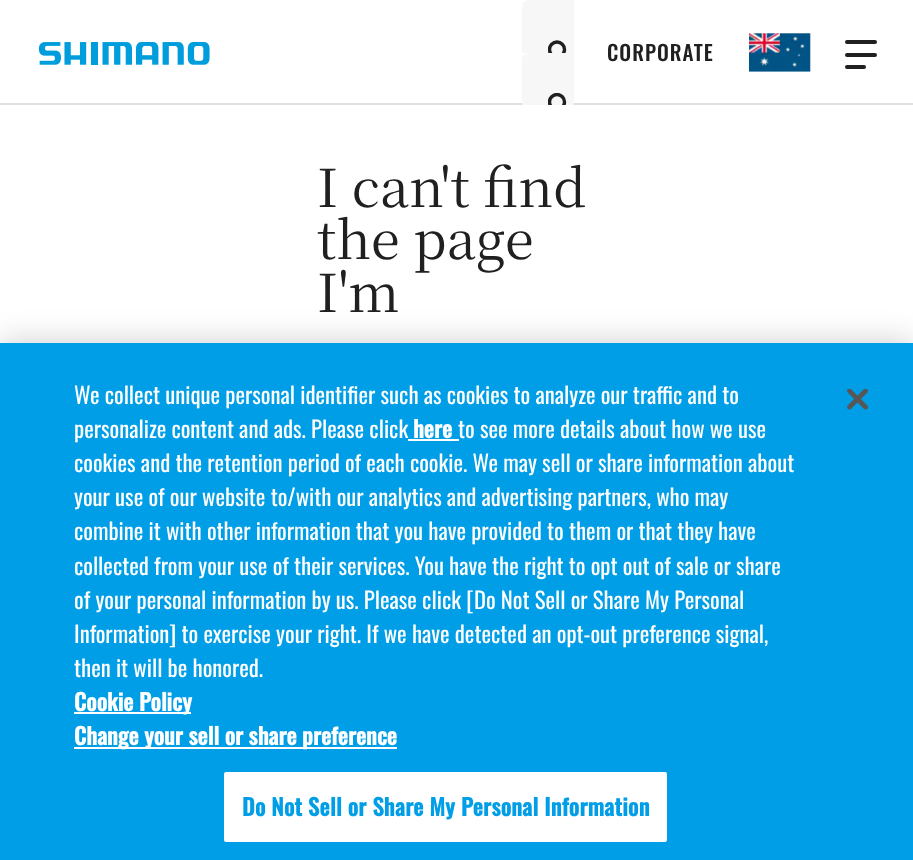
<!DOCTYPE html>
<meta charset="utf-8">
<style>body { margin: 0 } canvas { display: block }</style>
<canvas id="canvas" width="913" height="860"></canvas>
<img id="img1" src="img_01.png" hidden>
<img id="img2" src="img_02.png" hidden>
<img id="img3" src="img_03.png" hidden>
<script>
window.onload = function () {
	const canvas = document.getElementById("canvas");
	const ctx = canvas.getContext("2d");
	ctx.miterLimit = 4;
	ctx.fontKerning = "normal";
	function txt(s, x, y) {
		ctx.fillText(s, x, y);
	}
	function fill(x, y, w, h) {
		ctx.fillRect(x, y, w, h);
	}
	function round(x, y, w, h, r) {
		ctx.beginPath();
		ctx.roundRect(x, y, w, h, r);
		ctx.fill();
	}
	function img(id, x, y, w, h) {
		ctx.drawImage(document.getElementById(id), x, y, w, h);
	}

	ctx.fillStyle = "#FFFFFF";
	fill(0, 0, 913, 860);
	ctx.fillStyle = "#F7F7F7";
	ctx.beginPath();
	ctx.roundRect(522, 0, 52, 53, [7, 0, 0, 0]);
	ctx.fill();
	ctx.save();
	ctx.beginPath();
	ctx.rect(548, 40, 24, 13);
	ctx.clip();
	ctx.beginPath();
	ctx.arc(557, 49.5, 7.5, 0, Math.PI * 2);
	ctx.strokeStyle = "#202020";
	ctx.lineWidth = 3.4;
	ctx.stroke();
	ctx.restore();
	ctx.fillStyle = "#DFDFDF";
	fill(0, 103, 913, 2);
	ctx.fillStyle = "#F7F7F7";
	ctx.beginPath();
	ctx.roundRect(522, 53, 52, 52, [7, 0, 0, 0]);
	ctx.fill();
	ctx.save();
	ctx.beginPath();
	ctx.rect(548, 93, 24, 12);
	ctx.clip();
	ctx.beginPath();
	ctx.arc(557, 102, 7.5, 0, Math.PI * 2);
	ctx.strokeStyle = "#202020";
	ctx.lineWidth = 3.4;
	ctx.stroke();
	ctx.restore();
	ctx.fillStyle = "#202020";
	round(845, 40, 32, 4, 2);
	round(845, 53, 32, 4, 2);
	round(845, 65, 21, 4, 2);
	img("img1", 38, 42, 172, 23);
	img("img2", 749, 33, 62, 39);
	ctx.fillStyle = "rgba(0, 0, 0, 0.2)";
	ctx.filter = "blur(16px)";
	ctx.beginPath();
	ctx.rect(0, 343, 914, 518);
	ctx.fill();
	ctx.filter = "none";
	ctx.fillStyle = "#009EE7";
	fill(0, 343, 913, 517);
	ctx.fillStyle = "#FFFFFF";
	fill(408, 439, 51, 2);
	fill(74, 712, 117, 2);
	fill(74, 747, 323, 2);
	ctx.beginPath();
	ctx.roundRect(223, 771, 445, 72, 3);
	ctx.fill();
	ctx.strokeStyle = "#009EE7";
	ctx.lineWidth = 2;
	ctx.stroke();
	img("img3", 847, 389, 21, 21);
	ctx.letterSpacing = "1px";
	ctx.font = "500 21px Oswald";
	ctx.fillStyle = "#202020";
	txt("CORPORATE", 607, 61);
	ctx.letterSpacing = "0px";
	ctx.font = "200 52.5px Noto Serif JP";
	txt("I can't find", 317, 207);
	txt("the page", 317, 259);
	txt("I'm", 317, 312);
	ctx.font = "22.75px Oswald";
	ctx.fillStyle = "#FFFFFF";
	txt("We collect unique personal identifier such as cookies to analyze our traffic and to", 74, 404);
	txt("personalize content and ads. Please click", 74, 438);
	ctx.font = "bold 22.75px Oswald";
	txt("here", 413, 438);
	ctx.font = "22.75px Oswald";
	txt("to see more details about how we use", 458, 438);
	txt("cookies and the retention period of each cookie. We may sell or share information about", 74, 472);
	txt("your use of our website to/with our analytics and advertising partners, who may", 74, 506);
	txt("combine it with other information that you have provided to them or that they have", 74, 540);
	txt("collected from your use of their services. You have the right to opt out of sale or share", 74, 575);
	txt("of your personal information by us. Please click [Do Not Sell or Share My Personal", 74, 609);
	txt("Information] to exercise your right. If we have detected an opt-out preference signal,", 74, 643);
	txt("then it will be honored.", 74, 677);
	ctx.font = "bold 22.75px Oswald";
	txt("Cookie Policy", 74, 711);
	txt("Change your sell or share preference", 74, 745);
	ctx.letterSpacing = "0.25px";
	ctx.fillStyle = "#009EE7";
	txt("Do Not Sell or Share My Personal Information", 242, 816);
};
</script>
